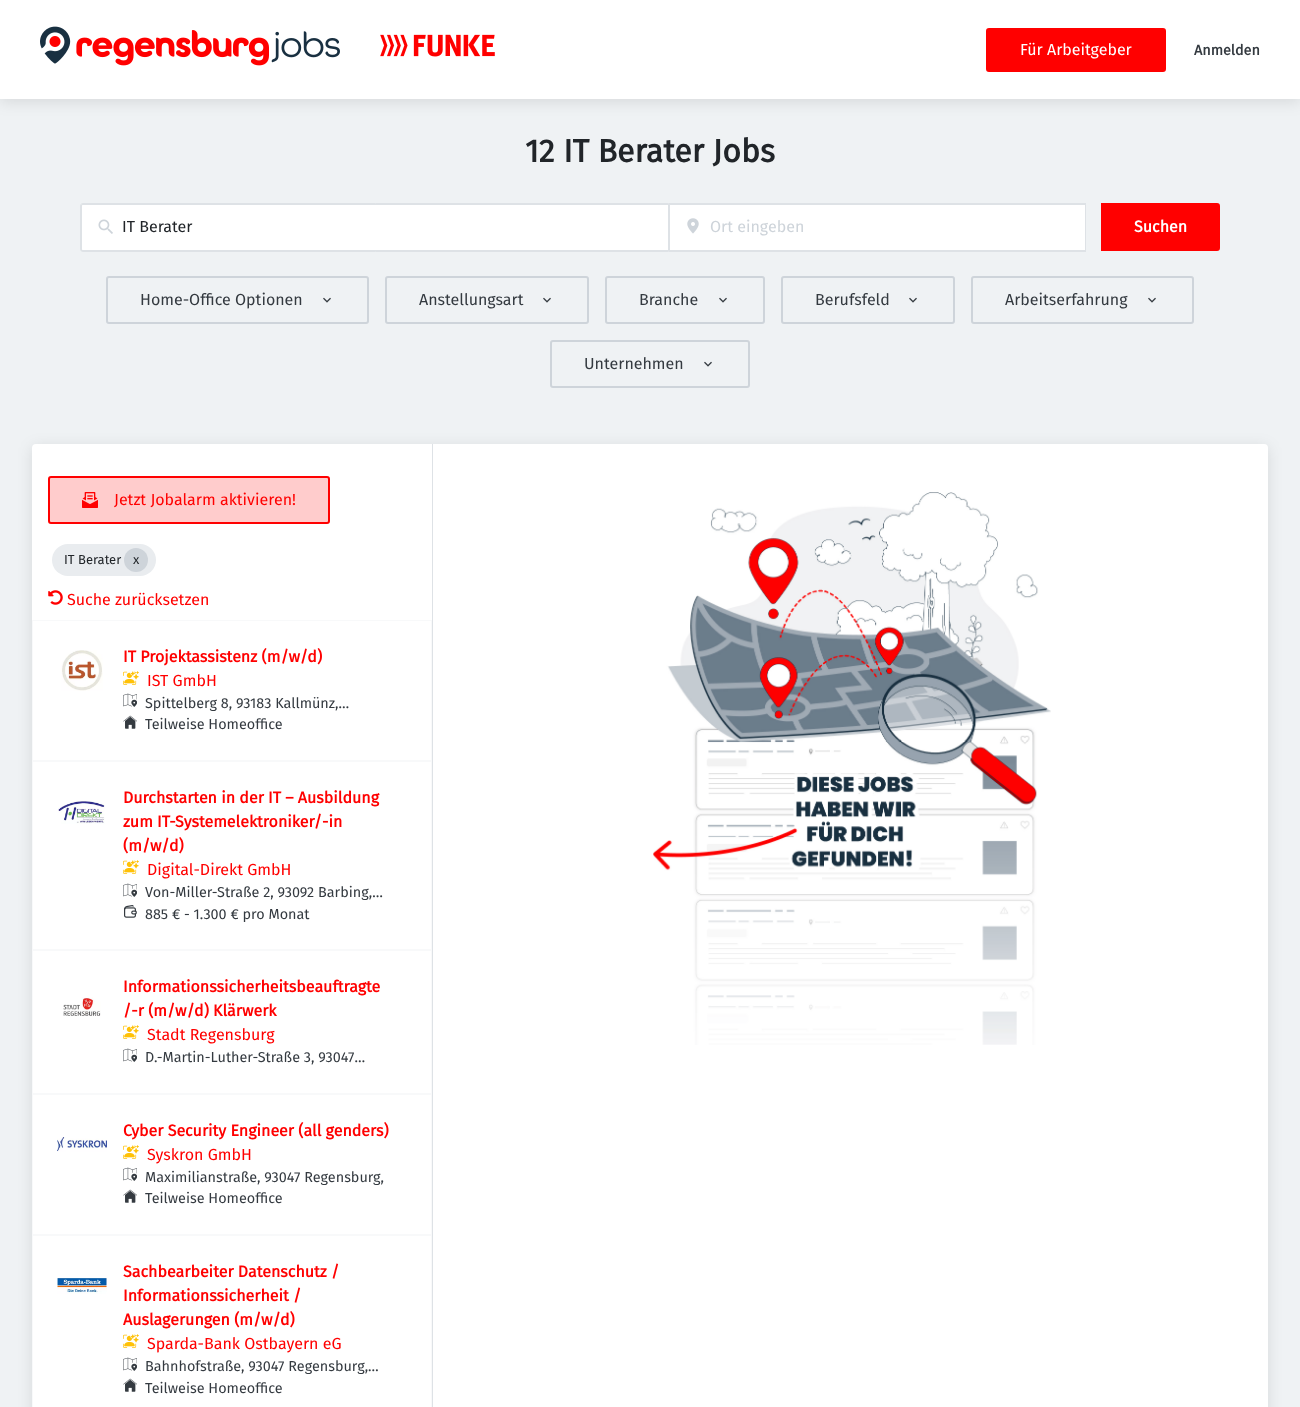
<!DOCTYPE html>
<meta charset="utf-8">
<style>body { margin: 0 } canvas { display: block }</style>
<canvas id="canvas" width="1300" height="1407"></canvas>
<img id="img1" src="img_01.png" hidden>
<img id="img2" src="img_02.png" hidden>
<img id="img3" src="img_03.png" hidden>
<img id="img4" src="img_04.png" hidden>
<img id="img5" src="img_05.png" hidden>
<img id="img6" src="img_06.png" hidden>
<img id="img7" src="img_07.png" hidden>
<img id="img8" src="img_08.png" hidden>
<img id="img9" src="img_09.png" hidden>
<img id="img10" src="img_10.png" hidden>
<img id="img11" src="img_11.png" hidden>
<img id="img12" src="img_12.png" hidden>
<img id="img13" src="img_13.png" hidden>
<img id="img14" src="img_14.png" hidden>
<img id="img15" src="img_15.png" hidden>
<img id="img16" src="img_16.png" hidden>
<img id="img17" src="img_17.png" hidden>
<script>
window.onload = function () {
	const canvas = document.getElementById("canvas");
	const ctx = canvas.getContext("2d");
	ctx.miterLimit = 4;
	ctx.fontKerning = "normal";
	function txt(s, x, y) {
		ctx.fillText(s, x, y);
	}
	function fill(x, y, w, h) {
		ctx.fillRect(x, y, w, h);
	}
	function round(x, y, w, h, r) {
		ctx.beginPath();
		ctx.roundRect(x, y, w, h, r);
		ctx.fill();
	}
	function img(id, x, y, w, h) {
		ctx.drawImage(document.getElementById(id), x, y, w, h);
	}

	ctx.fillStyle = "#EFF2F4";
	fill(0, 0, 1300, 1407);
	ctx.fillStyle = "rgba(0, 0, 0, 0.1)";
	ctx.filter = "blur(7.5px)";
	ctx.beginPath();
	ctx.rect(0, 3, 1300, 99);
	ctx.fill();
	ctx.filter = "none";
	ctx.fillStyle = "#FFFFFF";
	fill(0, 0, 1300, 99);
	img("img1", 40, 26, 300, 40);
	img("img2", 380, 34, 115, 23);
	ctx.fillStyle = "#FF0000";
	ctx.beginPath();
	ctx.roundRect(987, 29, 178, 42, 2);
	ctx.fill();
	ctx.strokeStyle = "#FF0000";
	ctx.lineWidth = 2;
	ctx.stroke();
	ctx.fillStyle = "#FFFFFF";
	ctx.beginPath();
	ctx.roundRect(82, 205, 586, 45, [1, 0, 0, 1]);
	ctx.fill();
	ctx.beginPath();
	ctx.roundRect(80.5, 203.5, 588, 48, [2.5, 0, 0, 2.5]);
	ctx.strokeStyle = "#DEE2E6";
	ctx.lineWidth = 1;
	ctx.stroke();
	img("img3", 98, 219, 15, 15);
	ctx.fillStyle = "#DEE2E6";
	fill(82, 204, 587, 1);
	fill(82, 250, 587, 1);
	fill(81, 205, 1, 46);
	ctx.fillStyle = "#FFFFFF";
	fill(670, 205, 415, 45);
	img("img4", 687, 218, 12, 16);
	ctx.fillStyle = "#DEE2E6";
	fill(669, 203, 417, 2);
	fill(1085, 203, 1, 49);
	fill(669, 250, 417, 2);
	fill(669, 203, 1, 49);
	ctx.fillStyle = "#FF0000";
	ctx.beginPath();
	ctx.roundRect(1102, 204, 117, 46, [0, 2, 2, 0]);
	ctx.fill();
	ctx.strokeStyle = "#FF0000";
	ctx.lineWidth = 2;
	ctx.stroke();
	ctx.beginPath();
	ctx.roundRect(107, 277, 261, 46, 2);
	ctx.strokeStyle = "#CED4DA";
	ctx.stroke();
	img("img5", 323, 297, 8, 6);
	ctx.beginPath();
	ctx.roundRect(386, 277, 202, 46, 2);
	ctx.stroke();
	img("img5", 543, 297, 8, 6);
	ctx.beginPath();
	ctx.roundRect(606, 277, 158, 46, 2);
	ctx.stroke();
	img("img5", 719, 297, 8, 6);
	ctx.beginPath();
	ctx.roundRect(782, 277, 172, 46, 2);
	ctx.stroke();
	img("img5", 909, 297, 8, 6);
	ctx.beginPath();
	ctx.roundRect(972, 277, 221, 46, 2);
	ctx.stroke();
	img("img5", 1148, 297, 8, 6);
	ctx.beginPath();
	ctx.roundRect(551, 341, 198, 46, 2);
	ctx.stroke();
	img("img5", 704, 361, 8, 6);
	ctx.fillStyle = "rgba(0, 0, 0, 0.1)";
	ctx.filter = "blur(7.5px)";
	ctx.beginPath();
	ctx.roundRect(32, 447, 1236, 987, 4);
	ctx.fill();
	ctx.filter = "none";
	ctx.fillStyle = "#FFFFFF";
	round(32, 444, 1236, 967, 4);
	ctx.fillStyle = "#DEE2E6";
	fill(432, 444, 1, 963);
	ctx.fillStyle = "#FFCCCC";
	ctx.beginPath();
	ctx.roundRect(49, 477, 280, 46, 2);
	ctx.fill();
	ctx.strokeStyle = "#FF0000";
	ctx.stroke();
	img("img6", 82, 492, 16, 16);
	ctx.fillStyle = "#E9ECEF";
	round(52, 544, 104, 32, 16);
	ctx.fillStyle = "#CED4DA";
	ctx.beginPath();
	ctx.arc(136, 560, 12, 0, Math.PI * 2);
	ctx.fill();
	img("img7", 48, 590, 15, 15);
	ctx.strokeStyle = "#F8F9FA";
	ctx.lineWidth = 1;
	ctx.strokeRect(32.5, 620.5, 399, 140);
	img("img8", 61, 650, 42, 41);
	img("img9", 123, 671, 16, 14);
	img("img10", 123, 693, 14, 14);
	img("img11", 123, 715, 14, 14);
	ctx.strokeRect(32.5, 761.5, 399, 188);
	img("img12", 58, 801, 47, 23);
	img("img9", 123, 860, 16, 14);
	img("img10", 123, 883, 14, 14);
	img("img13", 124, 905, 13, 13);
	ctx.strokeRect(32.5, 950.5, 399, 143);
	img("img14", 63, 997, 38, 19);
	img("img9", 123, 1025, 16, 14);
	img("img10", 123, 1048, 14, 14);
	ctx.strokeRect(32.5, 1094.5, 399, 140);
	img("img15", 57, 1137, 50, 15);
	img("img9", 123, 1145, 16, 14);
	img("img10", 123, 1167, 14, 14);
	img("img11", 123, 1189, 14, 14);
	ctx.strokeRect(32.5, 1235.5, 399, 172);
	img("img16", 57, 1278, 50, 16);
	img("img9", 123, 1334, 16, 14);
	img("img10", 123, 1357, 14, 14);
	img("img11", 123, 1378, 14, 14);
	img("img17", 653, 492, 398, 553);
	ctx.font = "16px Fira Sans";
	ctx.fillStyle = "#FFFFFF";
	txt("Für Arbeitgeber", 1020, 55);
	ctx.font = "bold 14.4px Fira Sans";
	ctx.fillStyle = "#343A40";
	txt("Anmelden", 1194, 55);
	ctx.font = "bold 32px Fira Sans";
	ctx.fillStyle = "#212529";
	txt("12 IT Berater Jobs", 525, 162);
	ctx.font = "16px Fira Sans";
	txt("IT Berater", 122, 232);
	ctx.fillStyle = "#CED4DA";
	txt("Ort eingeben", 710, 232);
	ctx.font = "bold 16px Fira Sans";
	ctx.fillStyle = "#FFFFFF";
	txt("Suchen", 1134, 232);
	ctx.font = "16px Fira Sans";
	ctx.fillStyle = "#343A40";
	txt("Home-Office Optionen", 140, 305);
	txt("Anstellungsart", 419, 305);
	txt("Branche", 639, 305);
	txt("Berufsfeld", 815, 305);
	txt("Arbeitserfahrung", 1005, 305);
	txt("Unternehmen", 584, 369);
	ctx.fillStyle = "#FF0000";
	txt("Jetzt Jobalarm aktivieren!", 114, 505);
	ctx.font = "13px Fira Sans";
	ctx.fillStyle = "#212529";
	txt("IT Berater", 64, 564);
	txt("x", 133, 564);
	ctx.font = "16px Fira Sans";
	ctx.fillStyle = "#FF0000";
	txt("Suche zurücksetzen", 67, 605);
	ctx.font = "bold 16px Fira Sans";
	txt("IT Projektassistenz (m/w/d)", 123, 662);
	ctx.font = "16px Fira Sans";
	txt("IST GmbH", 147, 686);
	ctx.font = "14.4px Fira Sans";
	ctx.fillStyle = "#343A40";
	txt("Spittelberg 8, 93183 Kallmünz,…", 145, 708);
	txt("Teilweise Homeoffice", 145, 729);
	ctx.font = "bold 16px Fira Sans";
	ctx.fillStyle = "#FF0000";
	txt("Durchstarten in der IT – Ausbildung", 123, 803);
	txt("zum IT-Systemelektroniker/-in", 123, 827);
	txt("(m/w/d)", 123, 851);
	ctx.font = "16px Fira Sans";
	txt("Digital-Direkt GmbH", 147, 875);
	ctx.font = "14.4px Fira Sans";
	ctx.fillStyle = "#343A40";
	txt("Von-Miller-Straße 2, 93092 Barbing,…", 145, 897);
	txt("885 € - 1.300 € pro Monat", 145, 919);
	ctx.font = "bold 16px Fira Sans";
	ctx.fillStyle = "#FF0000";
	txt("Informationssicherheitsbeauftragte", 123, 992);
	txt("/-r (m/w/d) Klärwerk", 123, 1016);
	ctx.font = "16px Fira Sans";
	txt("Stadt Regensburg", 147, 1040);
	ctx.font = "14.4px Fira Sans";
	ctx.fillStyle = "#343A40";
	txt("D.-Martin-Luther-Straße 3, 93047…", 145, 1062);
	ctx.font = "bold 16px Fira Sans";
	ctx.fillStyle = "#FF0000";
	txt("Cyber Security Engineer (all genders)", 123, 1136);
	ctx.font = "16px Fira Sans";
	txt("Syskron GmbH", 147, 1160);
	ctx.font = "14.4px Fira Sans";
	ctx.fillStyle = "#343A40";
	txt("Maximilianstraße, 93047 Regensburg,", 145, 1182);
	txt("Teilweise Homeoffice", 145, 1203);
	ctx.font = "bold 16px Fira Sans";
	ctx.fillStyle = "#FF0000";
	txt("Sachbearbeiter Datenschutz /", 123, 1277);
	txt("Informationssicherheit /", 123, 1301);
	txt("Auslagerungen (m/w/d)", 123, 1325);
	ctx.font = "16px Fira Sans";
	txt("Sparda-Bank Ostbayern eG", 147, 1349);
	ctx.font = "14.4px Fira Sans";
	ctx.fillStyle = "#343A40";
	txt("Bahnhofstraße, 93047 Regensburg,…", 145, 1371);
	txt("Teilweise Homeoffice", 145, 1393);
};
</script>
